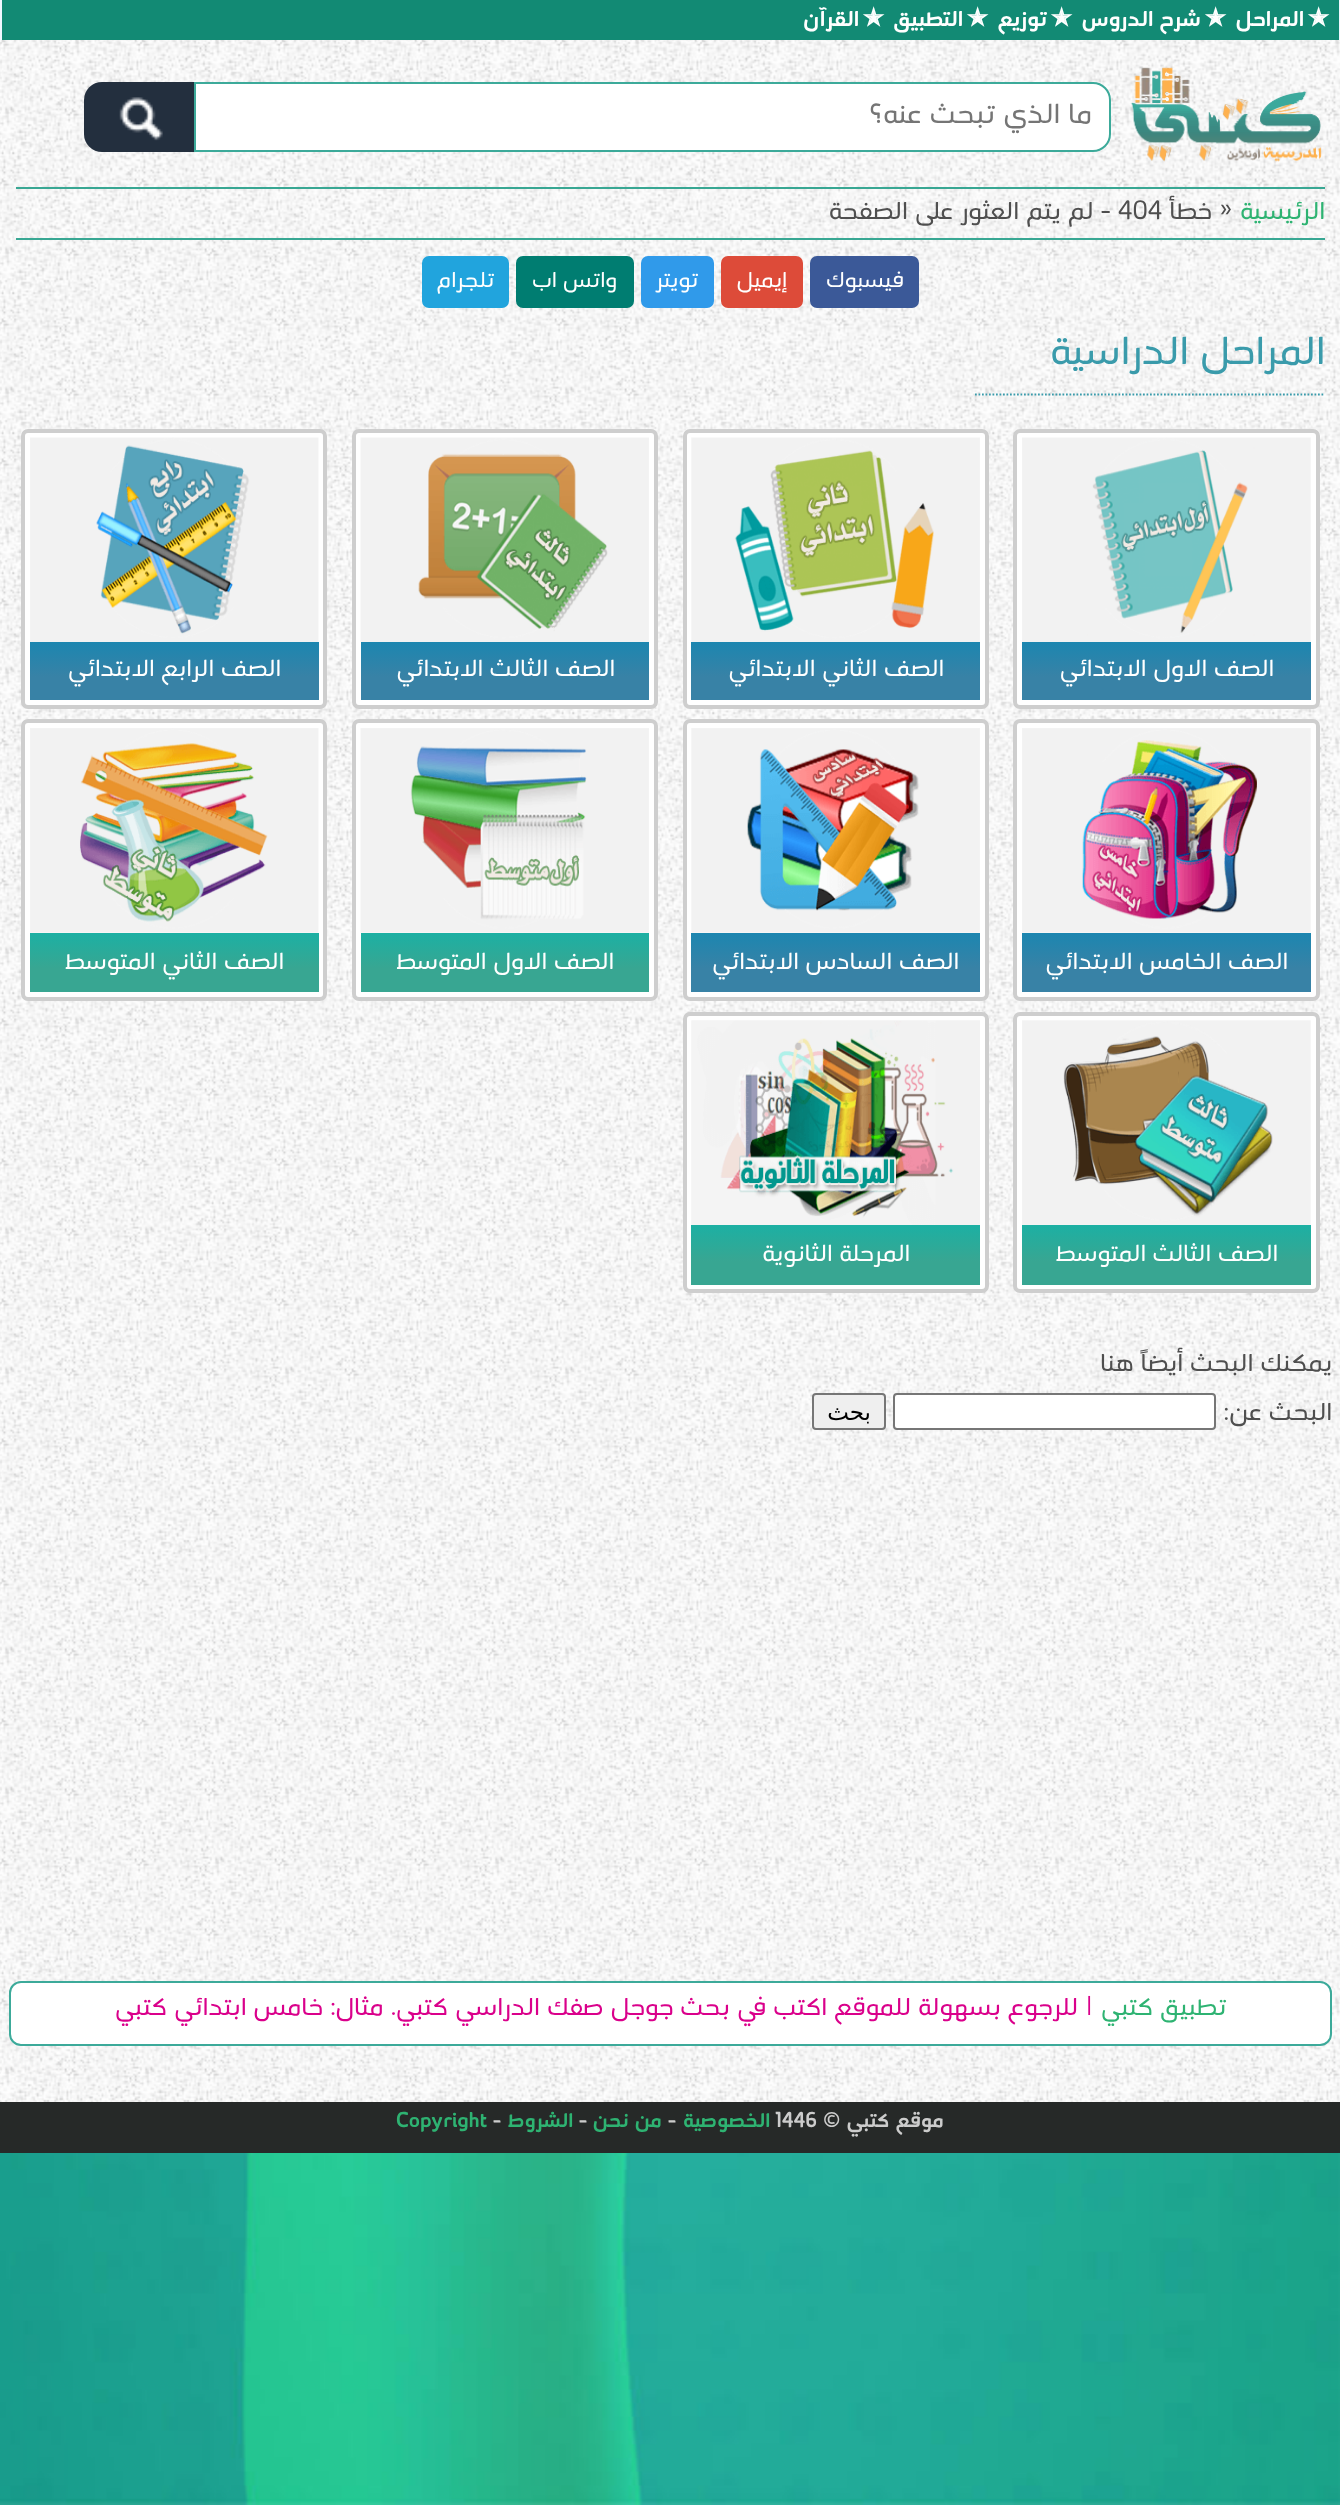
<!DOCTYPE html>
<meta charset="utf-8">
<style>body { margin: 0 } canvas { display: block }</style>
<canvas id="canvas" width="1340" height="2505"></canvas>
<img id="img1" src="img_01.png" hidden>
<img id="img2" src="img_02.png" hidden>
<img id="img3" src="img_03.png" hidden>
<img id="img4" src="img_04.png" hidden>
<img id="img5" src="img_05.png" hidden>
<img id="img6" src="img_06.png" hidden>
<img id="img7" src="img_07.png" hidden>
<img id="img8" src="img_08.png" hidden>
<img id="img9" src="img_09.png" hidden>
<img id="img10" src="img_10.png" hidden>
<img id="img11" src="img_11.png" hidden>
<img id="img12" src="img_12.png" hidden>
<img id="img13" src="img_13.png" hidden>
<img id="img14" src="img_14.png" hidden>
<script>
window.onload = function () {
	const canvas = document.getElementById("canvas");
	const ctx = canvas.getContext("2d");
	ctx.miterLimit = 4;
	ctx.fontKerning = "normal";
	function txt(s, x, y) {
		ctx.fillText(s, x, y);
	}
	function fill(x, y, w, h) {
		ctx.fillRect(x, y, w, h);
	}
	function round(x, y, w, h, r) {
		ctx.beginPath();
		ctx.roundRect(x, y, w, h, r);
		ctx.fill();
	}
	function img(id, x, y, w, h) {
		ctx.drawImage(document.getElementById(id), x, y, w, h);
	}
	let gradient;

	ctx.fillStyle = "#FFFFFF";
	fill(0, 0, 1340, 2505);
	img("img1", 0, 2153, 1340, 352);
	ctx.fillStyle = "#128A74";
	fill(2, 0, 1337, 40);
	ctx.fillStyle = "#F0F8FF";
	fill(1339, 0, 1, 40);
	fill(0, 0, 2, 40);
	img("img2", 0, 40, 1340, 2062);
	img("img3", 1130, 67, 192, 95);
	ctx.fillStyle = "#FFFFFF";
	ctx.beginPath();
	ctx.roundRect(195, 83, 915, 68, [0, 17, 17, 0]);
	ctx.fill();
	ctx.strokeStyle = "#3CAA9A";
	ctx.lineWidth = 2;
	ctx.stroke();
	ctx.fillStyle = "#232F3E";
	ctx.beginPath();
	ctx.roundRect(84, 82, 110, 70, [18, 0, 0, 18]);
	ctx.fill();
	img("img4", 119, 97, 44, 44);
	ctx.fillStyle = "#38A793";
	fill(16, 187, 1309, 2);
	fill(16, 238, 1309, 2);
	ctx.fillStyle = "#3B5998";
	round(810, 256, 109, 52, 7);
	ctx.fillStyle = "#DD4B39";
	round(721, 256, 82, 52, 7);
	ctx.fillStyle = "#309AEA";
	round(641, 256, 73, 52, 7);
	ctx.fillStyle = "#007D71";
	round(516, 256, 118, 52, 7);
	ctx.fillStyle = "#21A4DD";
	round(422, 256, 87, 52, 7);
	ctx.beginPath();
	ctx.moveTo(975, 394.5);
	ctx.lineTo(1325, 394.5);
	ctx.strokeStyle = "#3A9BAB";
	ctx.lineWidth = 1.8;
	ctx.setLineDash([1.75, 1.75]);
	ctx.stroke();
	ctx.fillStyle = "#FFFFFF";
	ctx.beginPath();
	ctx.roundRect(1015, 431, 303, 276, 5);
	ctx.fill();
	ctx.strokeStyle = "#CECECE";
	ctx.lineWidth = 4;
	ctx.setLineDash([]);
	ctx.stroke();
	img("img5", 1022, 437, 289, 205);
	gradient = ctx.createLinearGradient(1166, 642, 1166, 700);
	gradient.addColorStop(0, "#1C86B0");
	gradient.addColorStop(0.6, "#3882A6");
	ctx.fillStyle = gradient;
	fill(1022, 642, 289, 58);
	ctx.fillStyle = "#FFFFFF";
	ctx.beginPath();
	ctx.roundRect(685, 431, 302, 276, 5);
	ctx.fill();
	ctx.stroke();
	img("img6", 691, 437, 289, 205);
	gradient = ctx.createLinearGradient(836, 642, 836, 700);
	gradient.addColorStop(0, "#1C86B0");
	gradient.addColorStop(0.6, "#3882A6");
	ctx.fillStyle = gradient;
	fill(691, 642, 289, 58);
	ctx.fillStyle = "#FFFFFF";
	ctx.beginPath();
	ctx.roundRect(354, 431, 302, 276, 5);
	ctx.fill();
	ctx.stroke();
	img("img7", 360, 437, 289, 205);
	gradient = ctx.createLinearGradient(505, 642, 505, 700);
	gradient.addColorStop(0, "#1C86B0");
	gradient.addColorStop(0.6, "#3882A6");
	ctx.fillStyle = gradient;
	fill(361, 642, 288, 58);
	ctx.fillStyle = "#FFFFFF";
	ctx.beginPath();
	ctx.roundRect(23, 431, 302, 276, 5);
	ctx.fill();
	ctx.stroke();
	img("img8", 30, 437, 289, 205);
	gradient = ctx.createLinearGradient(174, 642, 174, 700);
	gradient.addColorStop(0, "#1C86B0");
	gradient.addColorStop(0.6, "#3882A6");
	ctx.fillStyle = gradient;
	fill(30, 642, 289, 58);
	ctx.fillStyle = "#FFFFFF";
	ctx.beginPath();
	ctx.roundRect(1015, 721, 303, 278, 5);
	ctx.fill();
	ctx.stroke();
	img("img9", 1022, 728, 289, 205);
	gradient = ctx.createLinearGradient(1166, 933, 1166, 992);
	gradient.addColorStop(0, "#1C86B0");
	gradient.addColorStop(0.6, "#3882A6");
	ctx.fillStyle = gradient;
	fill(1022, 933, 289, 59);
	ctx.fillStyle = "#FFFFFF";
	ctx.beginPath();
	ctx.roundRect(685, 721, 302, 278, 5);
	ctx.fill();
	ctx.stroke();
	img("img10", 691, 728, 289, 205);
	gradient = ctx.createLinearGradient(836, 933, 836, 992);
	gradient.addColorStop(0, "#1C86B0");
	gradient.addColorStop(0.6, "#3882A6");
	ctx.fillStyle = gradient;
	fill(691, 933, 289, 59);
	ctx.fillStyle = "#FFFFFF";
	ctx.beginPath();
	ctx.roundRect(354, 721, 302, 278, 5);
	ctx.fill();
	ctx.stroke();
	img("img11", 360, 728, 289, 205);
	gradient = ctx.createLinearGradient(505, 933, 505, 992);
	gradient.addColorStop(0, "#1CB0A3");
	gradient.addColorStop(0.6, "#38A692");
	ctx.fillStyle = gradient;
	fill(361, 933, 288, 59);
	ctx.fillStyle = "#FFFFFF";
	ctx.beginPath();
	ctx.roundRect(23, 721, 302, 278, 5);
	ctx.fill();
	ctx.stroke();
	img("img12", 30, 728, 289, 205);
	gradient = ctx.createLinearGradient(174, 933, 174, 992);
	gradient.addColorStop(0, "#1CB0A3");
	gradient.addColorStop(0.6, "#38A692");
	ctx.fillStyle = gradient;
	fill(30, 933, 289, 59);
	ctx.fillStyle = "#FFFFFF";
	ctx.beginPath();
	ctx.roundRect(1015, 1014, 303, 277, 5);
	ctx.fill();
	ctx.stroke();
	img("img13", 1022, 1020, 289, 205);
	gradient = ctx.createLinearGradient(1166, 1225, 1166, 1285);
	gradient.addColorStop(0, "#1CB0A3");
	gradient.addColorStop(0.6, "#38A692");
	ctx.fillStyle = gradient;
	fill(1022, 1225, 289, 60);
	ctx.fillStyle = "#FFFFFF";
	ctx.beginPath();
	ctx.roundRect(685, 1014, 302, 277, 5);
	ctx.fill();
	ctx.stroke();
	img("img14", 691, 1020, 289, 205);
	gradient = ctx.createLinearGradient(836, 1225, 836, 1285);
	gradient.addColorStop(0, "#1CB0A3");
	gradient.addColorStop(0.6, "#38A692");
	ctx.fillStyle = gradient;
	fill(691, 1225, 289, 60);
	ctx.fillStyle = "#FFFFFF";
	ctx.beginPath();
	ctx.roundRect(894, 1394, 321, 35, 3);
	ctx.fill();
	ctx.strokeStyle = "#767676";
	ctx.lineWidth = 2;
	ctx.stroke();
	ctx.fillStyle = "#EFEFEF";
	ctx.beginPath();
	ctx.roundRect(813, 1394, 72, 35, 3);
	ctx.fill();
	ctx.stroke();
	ctx.fillStyle = "#FFFFFF";
	ctx.beginPath();
	ctx.roundRect(10, 1982, 1321, 63, 11);
	ctx.fill();
	ctx.strokeStyle = "#3CAA9A";
	ctx.stroke();
	ctx.fillStyle = "#262928";
	fill(0, 2102, 1340, 51);
	ctx.font = "bold 24.5px DejaVu Sans";
	ctx.fillStyle = "#FFFFFF";
	txt("✭", 1308, 26);
	ctx.direction = "rtl";
	ctx.font = "bold 24.5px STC";
	txt("المراحل", 1304, 26);
	ctx.direction = "ltr";
	ctx.font = "bold 24.5px DejaVu Sans";
	txt("✭", 1205, 26);
	ctx.direction = "rtl";
	ctx.font = "bold 24.5px STC";
	txt("شرح الدروس", 1201, 26);
	ctx.direction = "ltr";
	ctx.font = "bold 24.5px DejaVu Sans";
	txt("✭", 1051, 26);
	ctx.direction = "rtl";
	ctx.font = "bold 24.5px STC";
	txt("توزيع", 1047, 26);
	ctx.direction = "ltr";
	ctx.font = "bold 24.5px DejaVu Sans";
	txt("✭", 967, 26);
	ctx.direction = "rtl";
	ctx.font = "bold 24.5px STC";
	txt("التطبيق", 963, 26);
	ctx.direction = "ltr";
	ctx.font = "bold 24.5px DejaVu Sans";
	txt("✭", 863, 26);
	ctx.direction = "rtl";
	ctx.font = "bold 24.5px STC";
	txt("القرآن", 859, 26);
	ctx.font = "31.5px STC";
	ctx.fillStyle = "#757575";
	txt("ما الذي تبحث عنه؟", 1092, 123);
	ctx.font = "28px STC";
	ctx.fillStyle = "#2EB372";
	txt("الرئيسية", 1325, 219);
	ctx.direction = "ltr";
	ctx.fillStyle = "#4F4F4F";
	txt("»", 1219, 219);
	ctx.direction = "rtl";
	txt("خطأ", 1212, 219);
	ctx.direction = "ltr";
	txt("404", 1118, 219);
	ctx.direction = "rtl";
	txt("- لم يتم العثور على الصفحة", 1111, 219);
	ctx.font = "24.5px STC";
	ctx.fillStyle = "#FFFFFF";
	txt("فيسبوك", 904, 287);
	txt("إيميل", 787, 287);
	txt("تويتر", 698, 287);
	txt("واتس اب", 617, 287);
	txt("تلجرام", 494, 287);
	ctx.font = "44.75px STC";
	ctx.fillStyle = "#3A9BAB";
	txt("المراحل الدراسية", 1325, 364);
	ctx.font = "26.75px STC";
	ctx.fillStyle = "#FFFFFF";
	txt("الصف الاول الابتدائي", 1274, 676);
	txt("الصف الثاني الابتدائي", 944, 676);
	txt("الصف الثالث الابتدائي", 615, 676);
	txt("الصف الرابع الابتدائي", 281, 676);
	txt("الصف الخامس الابتدائي", 1288, 969);
	txt("الصف السادس الابتدائي", 959, 969);
	txt("الصف الاول المتوسط", 614, 969);
	txt("الصف الثاني المتوسط", 284, 969);
	txt("الصف الثالث المتوسط", 1278, 1261);
	txt("المرحلة الثانوية", 910, 1261);
	ctx.font = "28px STC";
	ctx.fillStyle = "#4F4F4F";
	txt("يمكنك البحث أيضاً هنا", 1332, 1371);
	txt("البحث عن:", 1332, 1420);
	ctx.font = "23px DejaVu Sans";
	ctx.fillStyle = "#000000";
	txt("بحث", 871, 1420);
	ctx.font = "28px STC";
	ctx.fillStyle = "#2EB372";
	txt("تطبيق كتبي", 1226, 2015);
	ctx.direction = "ltr";
	ctx.fillStyle = "#DA008B";
	txt("|", 1085, 2015);
	ctx.direction = "rtl";
	txt("للرجوع بسهولة للموقع اكتب في بحث جوجل صفك الدراسي كتبي. مثال: خامس ابتدائي كتبي", 1078, 2015);
	ctx.font = "bold 22.75px STC";
	ctx.fillStyle = "#CCCCCC";
	txt("موقع كتبي ©", 944, 2127);
	ctx.direction = "ltr";
	txt("1446", 775, 2127);
	ctx.direction = "rtl";
	ctx.fillStyle = "#2EB372";
	txt("الخصوصية", 770, 2127);
	ctx.direction = "ltr";
	ctx.fillStyle = "#CCCCCC";
	txt("-", 668, 2127);
	ctx.direction = "rtl";
	ctx.fillStyle = "#2EB372";
	txt("من نحن", 662, 2127);
	ctx.direction = "ltr";
	ctx.fillStyle = "#CCCCCC";
	txt("-", 579, 2127);
	ctx.direction = "rtl";
	ctx.fillStyle = "#2EB372";
	txt("الشروط", 573, 2127);
	ctx.direction = "ltr";
	ctx.fillStyle = "#CCCCCC";
	txt("-", 493, 2127);
	ctx.fillStyle = "#2EB372";
	txt("Copyright", 396, 2127);
};
</script>
